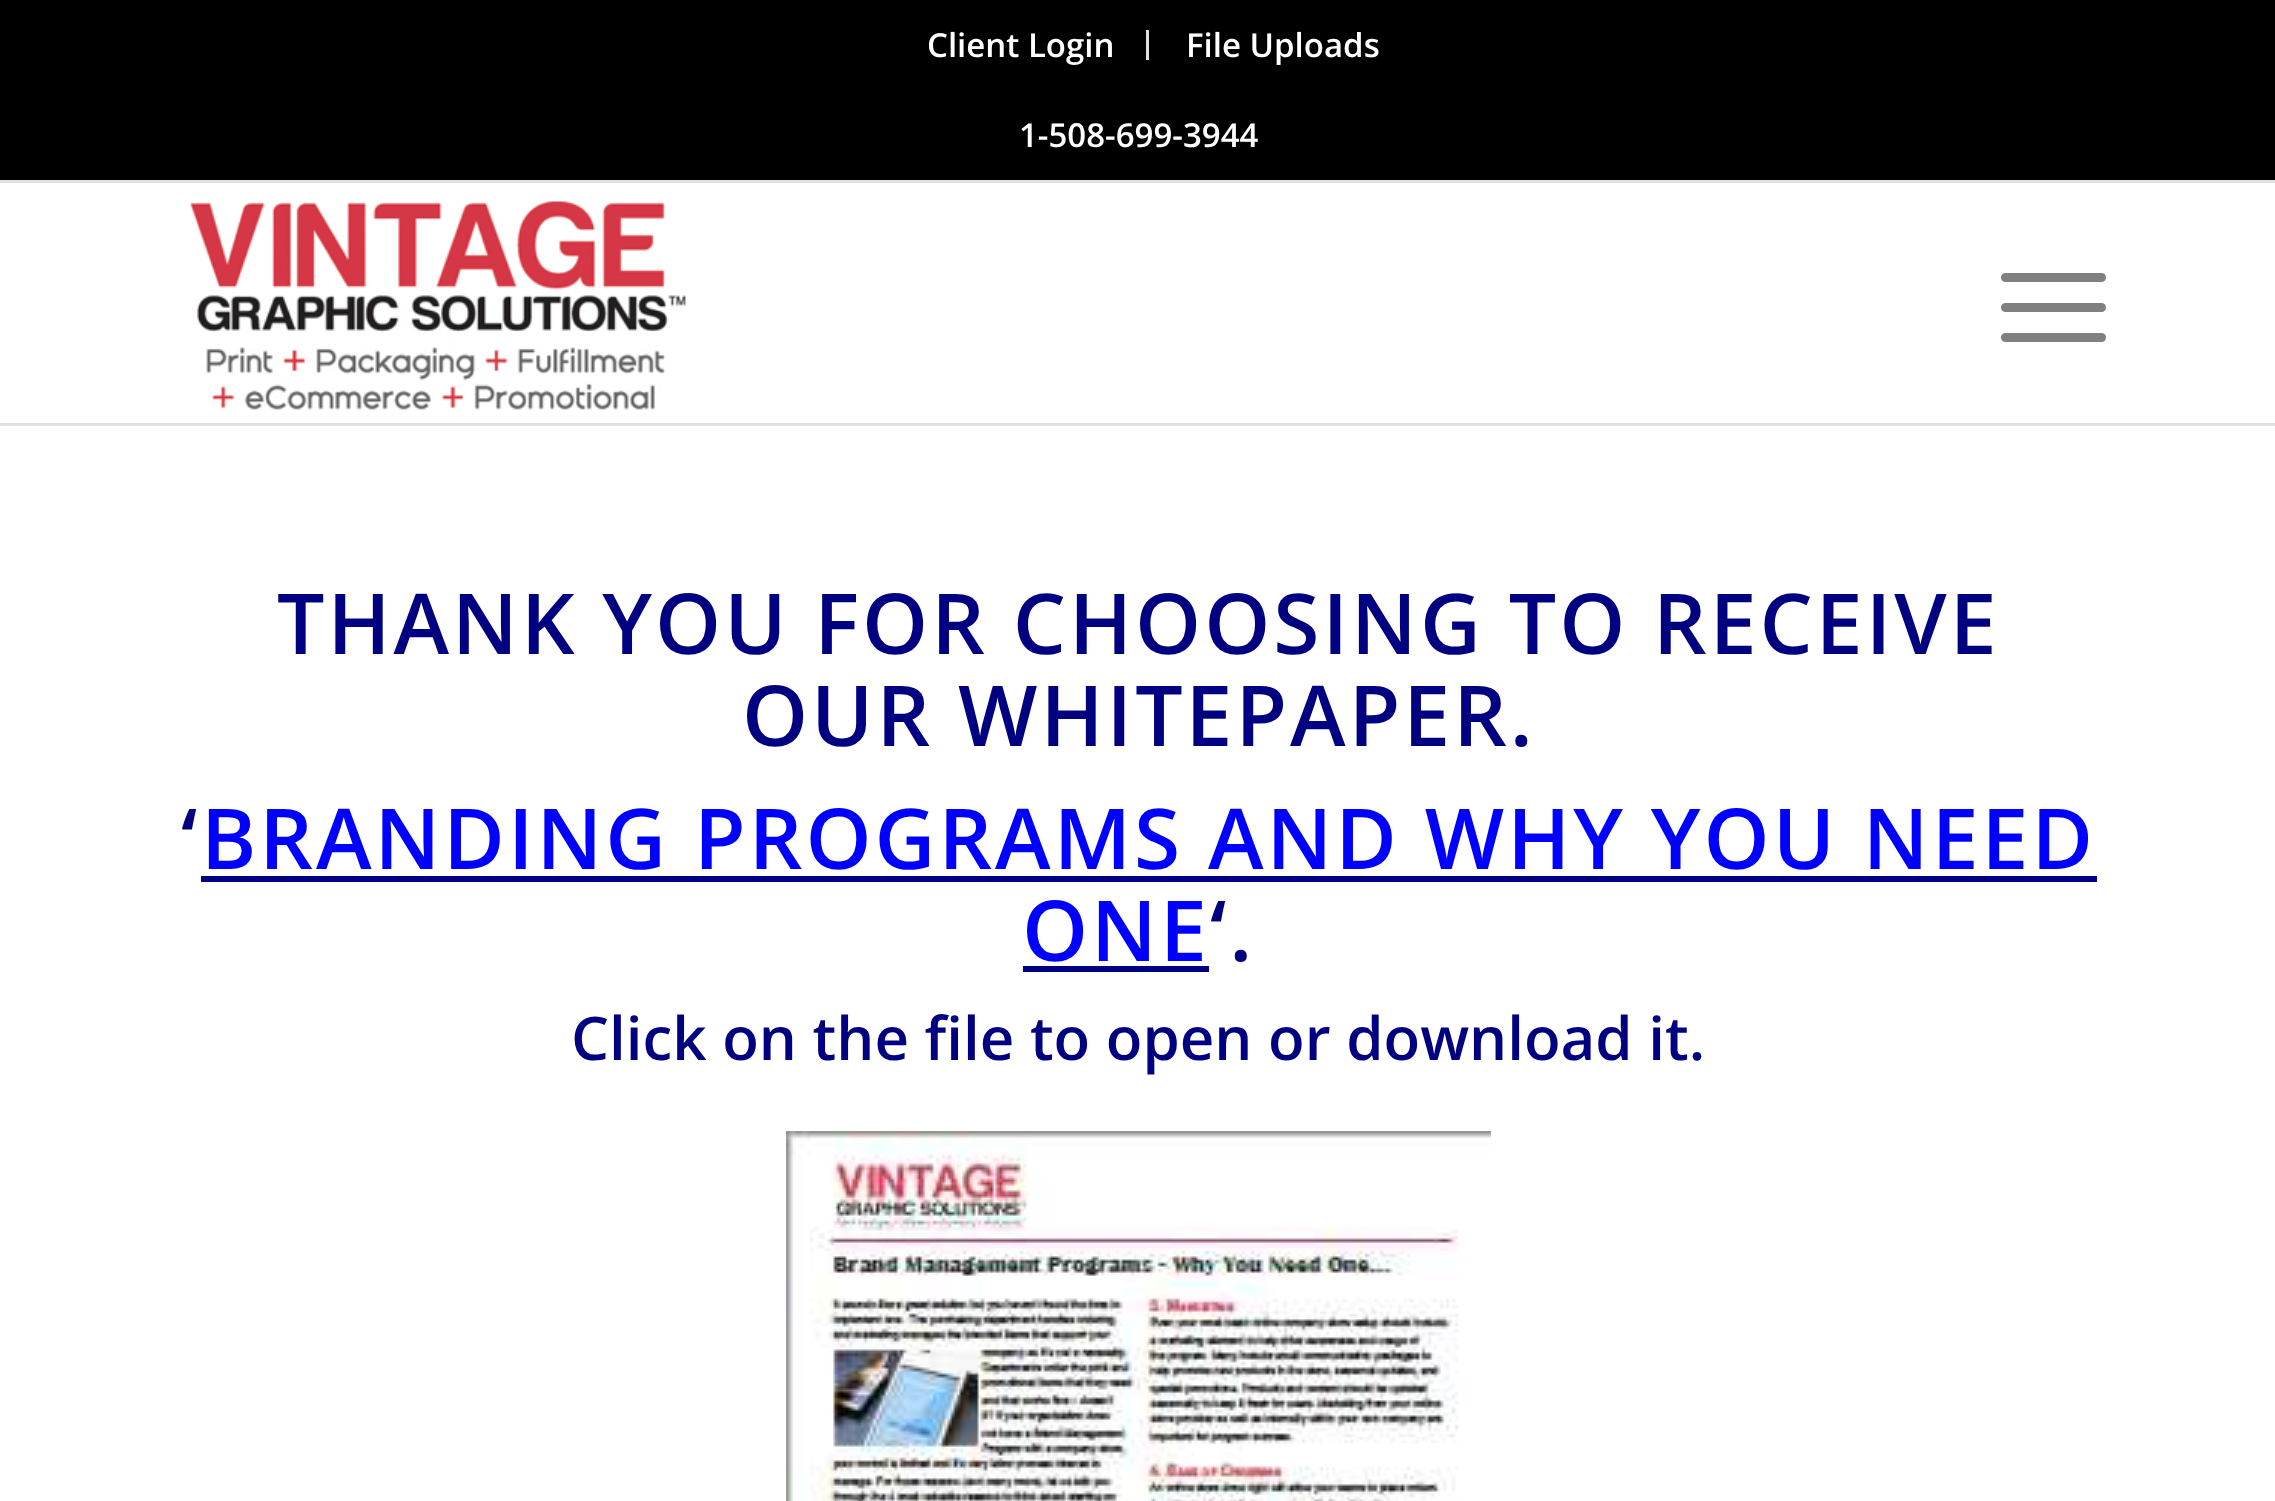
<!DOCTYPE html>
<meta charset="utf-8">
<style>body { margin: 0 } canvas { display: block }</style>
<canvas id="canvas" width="2275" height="1501"></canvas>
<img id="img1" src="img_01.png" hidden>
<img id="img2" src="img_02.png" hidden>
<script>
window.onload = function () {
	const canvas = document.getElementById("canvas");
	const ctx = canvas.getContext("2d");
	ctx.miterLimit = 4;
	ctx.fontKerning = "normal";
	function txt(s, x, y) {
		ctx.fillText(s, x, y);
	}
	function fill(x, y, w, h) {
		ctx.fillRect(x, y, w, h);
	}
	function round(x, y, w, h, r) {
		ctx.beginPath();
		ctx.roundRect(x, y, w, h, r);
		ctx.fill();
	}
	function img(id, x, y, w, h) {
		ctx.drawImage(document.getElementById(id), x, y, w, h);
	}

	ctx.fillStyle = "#FFFFFF";
	fill(0, 0, 2275, 1501);
	ctx.fillStyle = "#000000";
	fill(0, 0, 2275, 180);
	ctx.fillStyle = "#E1E1E1";
	fill(0, 180, 2275, 3);
	fill(1146, 30, 3, 30);
	fill(0, 423, 2275, 3);
	img("img1", 190, 201, 496, 209);
	ctx.fillStyle = "#808080";
	round(2001, 303, 105, 9, 4.5);
	round(2001, 273, 105, 9, 4.5);
	round(2001, 333, 105, 9, 4.5);
	ctx.fillStyle = "#000080";
	fill(201, 876, 1896, 6);
	fill(1023, 966, 186, 6);
	img("img2", 786, 1131, 705, 370);
	ctx.font = "600 33px Open Sans";
	ctx.fillStyle = "#FFFFFF";
	txt("Client Login", 927, 57);
	txt("File Uploads", 1186, 57);
	txt("1-508-699-3944", 1019, 147);
	ctx.letterSpacing = "3px";
	ctx.font = "600 84px Open Sans";
	ctx.fillStyle = "#000080";
	txt("THANK YOU FOR CHOOSING TO RECEIVE", 277, 654);
	txt("OUR WHITEPAPER.", 742, 746);
	txt("‘", 181, 869);
	ctx.fillStyle = "#0000FF";
	txt("BRANDING PROGRAMS AND WHY YOU NEED", 201, 869);
	txt("ONE", 1022, 961);
	ctx.fillStyle = "#000080";
	txt("‘.", 1210, 961);
	ctx.letterSpacing = "0px";
	ctx.font = "600 60px Open Sans";
	txt("Click on the file to open or download it.", 571, 1060);
};
</script>
